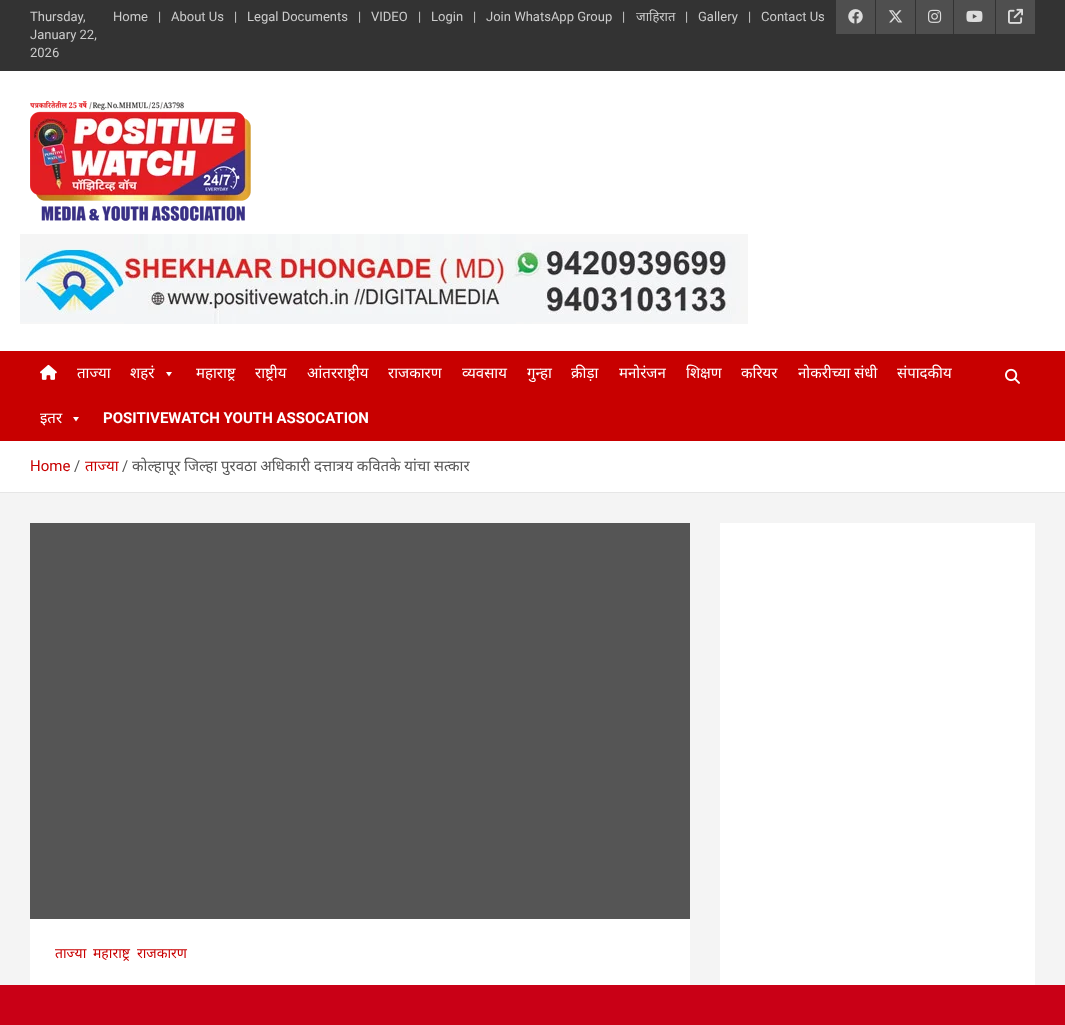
<!DOCTYPE html>
<meta charset="utf-8">
<style>body { margin: 0 } canvas { display: block }</style>
<canvas id="canvas" width="1065" height="1025"></canvas>
<img id="img1" src="img_01.png" hidden>
<img id="img2" src="img_02.png" hidden>
<img id="img3" src="img_03.png" hidden>
<img id="img4" src="img_04.png" hidden>
<img id="img5" src="img_05.png" hidden>
<img id="img6" src="img_06.png" hidden>
<img id="img7" src="img_07.png" hidden>
<img id="img8" src="img_08.png" hidden>
<img id="img9" src="img_09.png" hidden>
<script>
window.onload = function () {
	const canvas = document.getElementById("canvas");
	const ctx = canvas.getContext("2d");
	ctx.miterLimit = 4;
	ctx.fontKerning = "normal";
	function txt(s, x, y) {
		ctx.fillText(s, x, y);
	}
	function fill(x, y, w, h) {
		ctx.fillRect(x, y, w, h);
	}
	function img(id, x, y, w, h) {
		ctx.drawImage(document.getElementById(id), x, y, w, h);
	}

	ctx.fillStyle = "#F4F4F4";
	fill(0, 0, 1065, 1025);
	ctx.fillStyle = "#333333";
	fill(0, 0, 1065, 71);
	ctx.fillStyle = "#4F4F4F";
	fill(836, 0, 39, 34);
	img("img1", 848, 9, 15, 15);
	fill(876, 0, 39, 34);
	img("img2", 888, 10, 15, 13);
	fill(916, 0, 37, 34);
	img("img3", 928, 9, 14, 14);
	fill(954, 0, 41, 34);
	img("img4", 966, 10, 17, 12);
	fill(996, 0, 39, 34);
	img("img5", 1008, 8, 15, 16);
	ctx.fillStyle = "#FFFFFF";
	fill(0, 71, 1065, 280);
	img("img6", 30, 101, 221, 120);
	img("img7", 20, 234, 728, 90);
	ctx.fillStyle = "#C80000";
	fill(0, 351, 1065, 90);
	img("img8", 40, 364, 17, 16);
	ctx.fillStyle = "#FFFFFF";
	ctx.beginPath();
	ctx.moveTo(172, 372);
	ctx.lineTo(169, 376.5);
	ctx.lineTo(166, 372);
	ctx.closePath();
	ctx.fill();
	ctx.beginPath();
	ctx.moveTo(79, 417);
	ctx.lineTo(76, 421.5);
	ctx.lineTo(73, 417);
	ctx.closePath();
	ctx.fill();
	img("img9", 1005, 368, 15, 16);
	fill(0, 441, 1065, 51);
	ctx.fillStyle = "#E6E6E6";
	fill(0, 492, 1065, 1);
	ctx.fillStyle = "#FFFFFF";
	fill(30, 919, 660, 66);
	ctx.fillStyle = "#555555";
	fill(30, 523, 660, 396);
	ctx.fillStyle = "#FFFFFF";
	fill(720, 523, 315, 462);
	ctx.fillStyle = "#C90016";
	fill(0, 985, 1065, 40);
	ctx.font = "13px Roboto";
	ctx.fillStyle = "#CCCCCC";
	txt("Thursday,", 30, 21);
	txt("January 22,", 30, 39);
	txt("2026", 30, 57);
	txt("Home", 113, 21);
	txt("|", 158, 21);
	txt("About Us", 171, 21);
	txt("|", 234, 21);
	txt("Legal Documents", 247, 21);
	txt("|", 358, 21);
	txt("VIDEO", 371, 21);
	txt("|", 418, 21);
	txt("Login", 431, 21);
	txt("|", 473, 21);
	txt("Join WhatsApp Group", 486, 21);
	txt("|", 622, 21);
	ctx.font = "13px Noto Sans";
	txt("जाहिरात", 636, 21);
	ctx.font = "13px Roboto";
	txt("|", 685, 21);
	txt("Gallery", 698, 21);
	txt("|", 748, 21);
	txt("Contact Us", 761, 21);
	ctx.font = "15px Noto Sans";
	ctx.fillStyle = "#FFFFFF";
	txt("ताज्या", 77, 378);
	txt("शहरं", 130, 378);
	txt("महाराष्ट्र", 196, 378);
	txt("राष्ट्रीय", 255, 378);
	txt("आंतरराष्ट्रीय", 307, 378);
	txt("राजकारण", 388, 378);
	txt("व्यवसाय", 462, 378);
	txt("गुन्हा", 527, 378);
	txt("क्रीड़ा", 571, 378);
	txt("मनोरंजन", 619, 378);
	txt("शिक्षण", 686, 378);
	txt("करियर", 741, 378);
	txt("नोकरीच्या संधी", 798, 378);
	txt("संपादकीय", 897, 378);
	txt("इतर", 40, 423);
	ctx.font = "bold 15px Roboto";
	txt("POSITIVEWATCH YOUTH ASSOCATION", 103, 423);
	ctx.font = "15px Roboto";
	ctx.fillStyle = "#C80000";
	txt("Home", 30, 471);
	ctx.fillStyle = "#555555";
	txt("/", 74, 471);
	ctx.font = "15px Noto Sans";
	ctx.fillStyle = "#C80000";
	txt("ताज्या", 85, 471);
	ctx.font = "15px Roboto";
	ctx.fillStyle = "#555555";
	txt("/", 122, 471);
	ctx.wordSpacing = "-0.25px";
	ctx.font = "15px Noto Sans";
	txt("कोल्हापूर जिल्हा पुरवठा अधिकारी दत्तात्रय कवितके यांचा सत्कार", 132, 471);
	ctx.wordSpacing = "0px";
	ctx.font = "14px Noto Sans";
	ctx.fillStyle = "#C80000";
	txt("ताज्या", 55, 958);
	txt("महाराष्ट्र", 93, 958);
	txt("राजकारण", 137, 958);
};
</script>
